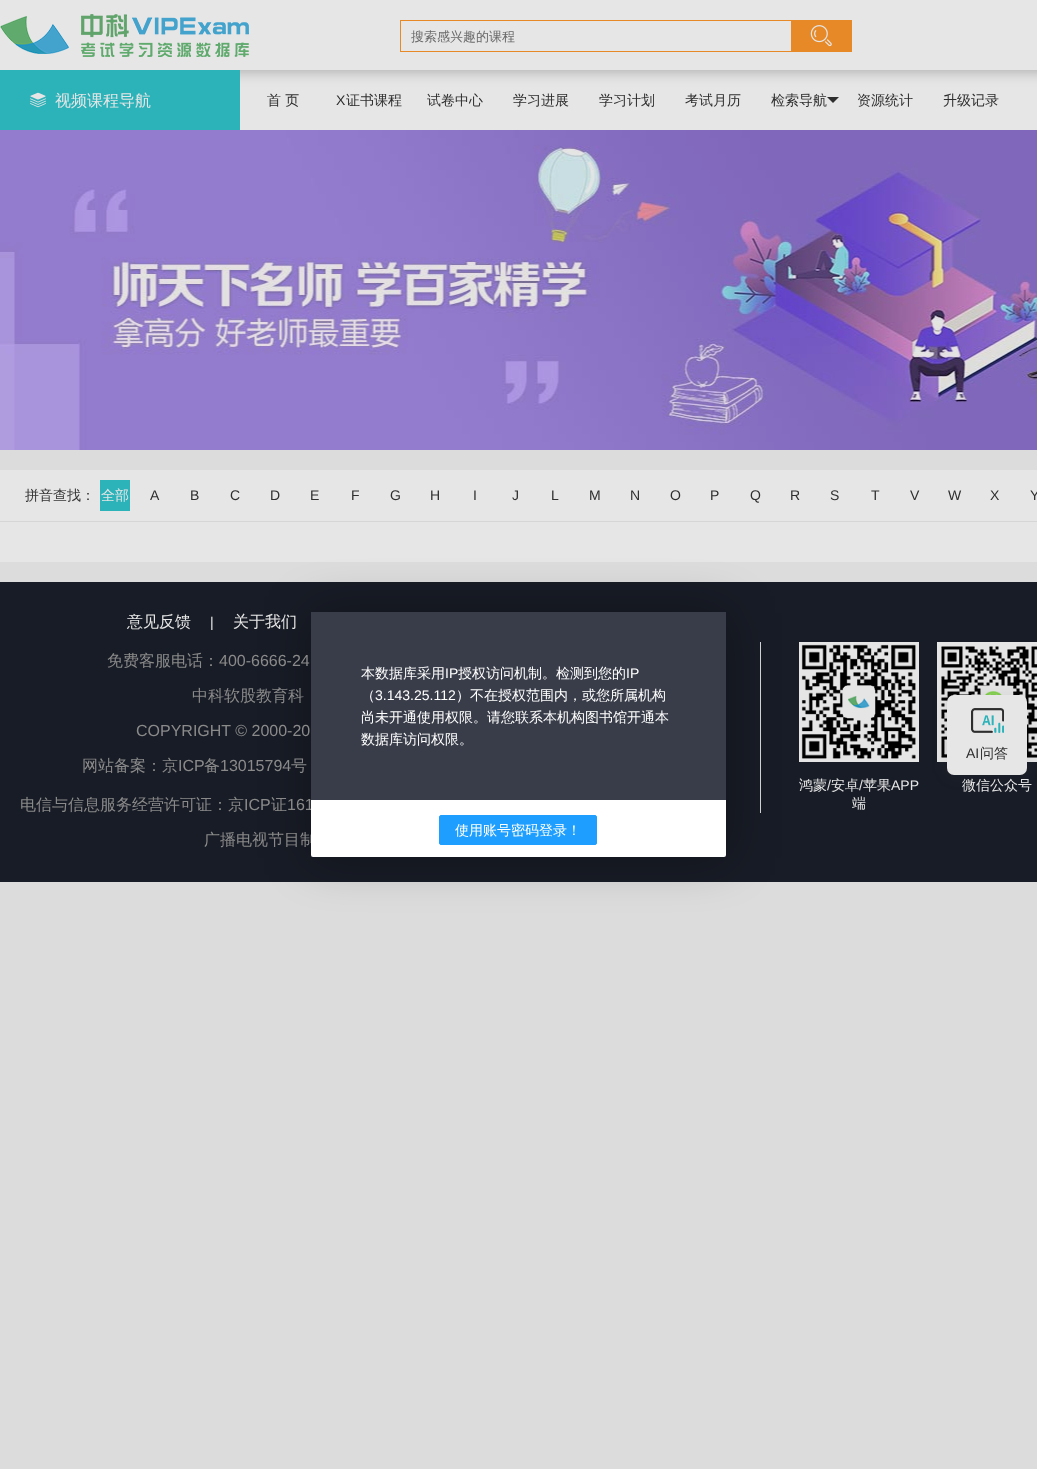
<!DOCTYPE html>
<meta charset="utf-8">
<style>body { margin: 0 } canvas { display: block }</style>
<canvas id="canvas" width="1037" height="1469"></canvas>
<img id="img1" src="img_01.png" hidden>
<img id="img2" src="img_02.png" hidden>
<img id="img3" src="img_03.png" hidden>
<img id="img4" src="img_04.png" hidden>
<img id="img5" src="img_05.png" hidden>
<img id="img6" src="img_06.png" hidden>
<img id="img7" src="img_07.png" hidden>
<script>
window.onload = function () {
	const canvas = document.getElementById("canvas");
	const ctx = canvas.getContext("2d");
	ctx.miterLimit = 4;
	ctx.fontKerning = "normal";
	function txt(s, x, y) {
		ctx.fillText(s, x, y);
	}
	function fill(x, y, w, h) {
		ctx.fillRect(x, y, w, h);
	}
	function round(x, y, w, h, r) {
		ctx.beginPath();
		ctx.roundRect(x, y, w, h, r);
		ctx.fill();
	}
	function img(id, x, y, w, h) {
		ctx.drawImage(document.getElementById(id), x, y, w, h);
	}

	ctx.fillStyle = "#DCDCDC";
	fill(0, 0, 1037, 1469);
	ctx.fillStyle = "#E6E6E6";
	fill(240, 70, 797, 60);
	ctx.fillStyle = "rgba(0, 0, 0, 0.3)";
	ctx.filter = "blur(7.5px)";
	ctx.beginPath();
	ctx.rect(0, 0, 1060, 70);
	ctx.fill();
	ctx.filter = "none";
	ctx.fillStyle = "#E6E6E6";
	fill(0, 0, 1037, 70);
	img("img1", 0, 14, 249, 43);
	ctx.strokeStyle = "#E68926";
	ctx.strokeRect(400.5, 20.5, 451, 31);
	ctx.fillStyle = "#E68926";
	fill(791, 21, 60, 30);
	img("img2", 810, 25, 22, 22);
	ctx.fillStyle = "#2CB2B9";
	fill(0, 70, 240, 60);
	img("img3", 30, 92, 16, 16);
	ctx.fillStyle = "#2E2E2E";
	ctx.beginPath();
	ctx.moveTo(827, 97);
	ctx.lineTo(839, 97);
	ctx.lineTo(833, 103);
	ctx.closePath();
	ctx.fill();
	img("img4", 0, 130, 1037, 320);
	ctx.fillStyle = "#E6E6E6";
	fill(0, 470, 1037, 92);
	ctx.fillStyle = "#D6D6D6";
	fill(0, 521, 1037, 1);
	ctx.fillStyle = "#2CB2B9";
	fill(100, 480, 30, 31);
	ctx.fillStyle = "#181C26";
	fill(0, 582, 1037, 300);
	ctx.fillStyle = "#D6D6D6";
	fill(760, 642, 1, 171);
	img("img5", 799, 642, 120, 120);
	img("img6", 937, 642, 100, 120);
	ctx.fillStyle = "rgba(0, 0, 0, 0.3)";
	ctx.filter = "blur(25px)";
	ctx.beginPath();
	ctx.roundRect(312, 613, 415, 245, 2);
	ctx.fill();
	ctx.filter = "none";
	ctx.fillStyle = "rgba(75, 75, 75, 0.1)";
	ctx.filter = "blur(7.5px)";
	ctx.beginPath();
	ctx.roundRect(946, 694, 82, 82, 8);
	ctx.fill();
	ctx.filter = "none";
	ctx.fillStyle = "#E6E6E6";
	round(947, 695, 80, 80, 7);
	img("img7", 971, 708, 33, 25);
	ctx.font = "500 13px WenQuanYi Zen Hei";
	ctx.fillStyle = "#696969";
	txt("搜索感兴趣的课程", 411, 41);
	ctx.font = "500 16px WenQuanYi Zen Hei";
	ctx.fillStyle = "#E6E6E6";
	txt("视频课程导航", 55, 106);
	ctx.font = "500 14px WenQuanYi Zen Hei";
	ctx.fillStyle = "#2E2E2E";
	txt("首 页", 267, 105);
	ctx.font = "14px Liberation Sans";
	txt("X", 336, 105);
	ctx.font = "500 14px WenQuanYi Zen Hei";
	txt("证书课程", 346, 105);
	txt("试卷中心", 427, 105);
	txt("学习进展", 513, 105);
	txt("学习计划", 599, 105);
	txt("考试月历", 685, 105);
	txt("检索导航", 771, 105);
	txt("资源统计", 857, 105);
	txt("升级记录", 943, 105);
	ctx.fillStyle = "#343434";
	txt("拼音查找：", 25, 500);
	ctx.fillStyle = "#E6E6E6";
	txt("全部", 101, 500);
	ctx.font = "14px Liberation Sans";
	ctx.fillStyle = "#2E2E2E";
	txt("A", 150, 500);
	txt("B", 190, 500);
	txt("C", 230, 500);
	txt("D", 270, 500);
	txt("E", 310, 500);
	txt("F", 351, 500);
	txt("G", 390, 500);
	txt("H", 430, 500);
	txt("I", 473, 500);
	txt("J", 512, 500);
	txt("L", 551, 500);
	txt("M", 589, 500);
	txt("N", 630, 500);
	txt("O", 670, 500);
	txt("P", 710, 500);
	txt("Q", 750, 500);
	txt("R", 790, 500);
	txt("S", 830, 500);
	txt("T", 871, 500);
	txt("V", 910, 500);
	txt("W", 948, 500);
	txt("X", 990, 500);
	txt("Y", 1030, 500);
	ctx.font = "500 16px WenQuanYi Zen Hei";
	ctx.fillStyle = "#E6E6E6";
	txt("意见反馈", 127, 627);
	ctx.font = "14px Liberation Sans";
	txt("|", 210, 627);
	ctx.font = "500 16px WenQuanYi Zen Hei";
	txt("关于我们", 233, 627);
	ctx.fillStyle = "#8A8A8A";
	txt("免费客服电话：", 107, 666);
	ctx.font = "16px Liberation Sans";
	txt("400-6666-24", 219, 666);
	ctx.font = "500 16px WenQuanYi Zen Hei";
	txt("中科软股教育科", 192, 701);
	ctx.font = "16px Liberation Sans";
	txt("COPYRIGHT © 2000-20", 136, 736);
	ctx.font = "500 16px WenQuanYi Zen Hei";
	txt("网站备案：京", 82, 771);
	ctx.font = "16px Liberation Sans";
	txt("ICP", 178, 771);
	ctx.font = "500 16px WenQuanYi Zen Hei";
	txt("备", 204, 771);
	ctx.font = "16px Liberation Sans";
	txt("13015794", 220, 771);
	ctx.font = "500 16px WenQuanYi Zen Hei";
	txt("号", 291, 771);
	txt("电信与信息服务经营许可证：京", 20, 810);
	ctx.font = "16px Liberation Sans";
	txt("ICP", 244, 810);
	ctx.font = "500 16px WenQuanYi Zen Hei";
	txt("证", 271, 810);
	ctx.font = "16px Liberation Sans";
	txt("161", 287, 810);
	ctx.font = "500 16px WenQuanYi Zen Hei";
	txt("广播电视节目制", 204, 845);
	ctx.font = "500 14px WenQuanYi Zen Hei";
	ctx.fillStyle = "#E6E6E6";
	txt("鸿蒙", 799, 790);
	ctx.font = "14px Liberation Sans";
	txt("/", 827, 790);
	ctx.font = "500 14px WenQuanYi Zen Hei";
	txt("安卓", 831, 790);
	ctx.font = "14px Liberation Sans";
	txt("/", 859, 790);
	ctx.font = "500 14px WenQuanYi Zen Hei";
	txt("苹果", 863, 790);
	ctx.font = "14px Liberation Sans";
	txt("APP", 891, 790);
	ctx.font = "500 14px WenQuanYi Zen Hei";
	txt("端", 852, 808);
	txt("微信公众号", 962, 790);
	ctx.fillStyle = "#FFFFFF";
	round(311, 612, 415, 245, 2);
	ctx.fillStyle = "#393D49";
	fill(311, 612, 415, 188);
	ctx.fillStyle = "#FFFFFF";
	txt("本数据库采用", 361, 678);
	ctx.font = "14px Liberation Sans";
	txt("IP", 445, 678);
	ctx.font = "500 14px WenQuanYi Zen Hei";
	txt("授权访问机制。检测到您的", 458, 678);
	ctx.font = "14px Liberation Sans";
	txt("IP", 626, 678);
	ctx.font = "500 14px WenQuanYi Zen Hei";
	txt("（", 361, 700);
	ctx.font = "14px Liberation Sans";
	txt("3.143.25.112", 375, 700);
	ctx.font = "500 14px WenQuanYi Zen Hei";
	txt("）不在授权范围内，或您所属机构", 456, 700);
	txt("尚未开通使用权限。请您联系本机构图书馆开通本", 361, 722);
	txt("数据库访问权限。", 361, 744);
	ctx.fillStyle = "#1E9FFF";
	ctx.beginPath();
	ctx.roundRect(439.5, 815.5, 157, 29, 1.5);
	ctx.fill();
	ctx.strokeStyle = "#1E9FFF";
	ctx.stroke();
	ctx.fillStyle = "#FFFFFF";
	txt("使用账号密码登录！", 455, 835);
	ctx.font = "14px Liberation Sans";
	ctx.fillStyle = "#2E2E2E";
	txt("AI", 966, 758);
	ctx.font = "500 14px WenQuanYi Zen Hei";
	txt("问答", 980, 758);
};
</script>
